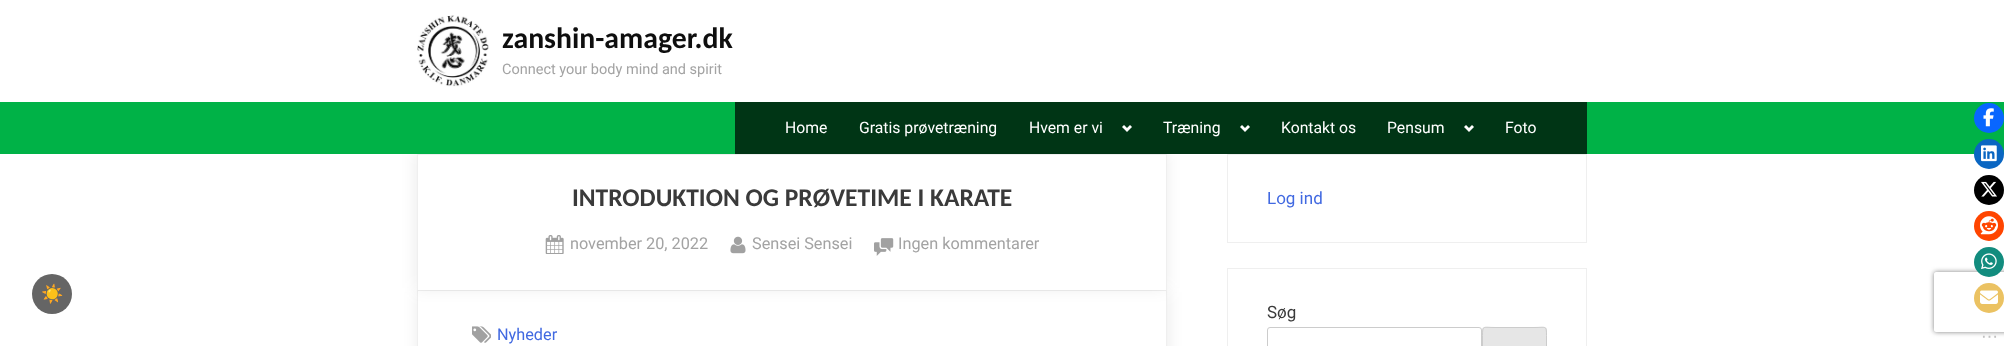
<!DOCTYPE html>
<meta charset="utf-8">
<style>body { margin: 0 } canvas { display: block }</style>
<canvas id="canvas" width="2004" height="346"></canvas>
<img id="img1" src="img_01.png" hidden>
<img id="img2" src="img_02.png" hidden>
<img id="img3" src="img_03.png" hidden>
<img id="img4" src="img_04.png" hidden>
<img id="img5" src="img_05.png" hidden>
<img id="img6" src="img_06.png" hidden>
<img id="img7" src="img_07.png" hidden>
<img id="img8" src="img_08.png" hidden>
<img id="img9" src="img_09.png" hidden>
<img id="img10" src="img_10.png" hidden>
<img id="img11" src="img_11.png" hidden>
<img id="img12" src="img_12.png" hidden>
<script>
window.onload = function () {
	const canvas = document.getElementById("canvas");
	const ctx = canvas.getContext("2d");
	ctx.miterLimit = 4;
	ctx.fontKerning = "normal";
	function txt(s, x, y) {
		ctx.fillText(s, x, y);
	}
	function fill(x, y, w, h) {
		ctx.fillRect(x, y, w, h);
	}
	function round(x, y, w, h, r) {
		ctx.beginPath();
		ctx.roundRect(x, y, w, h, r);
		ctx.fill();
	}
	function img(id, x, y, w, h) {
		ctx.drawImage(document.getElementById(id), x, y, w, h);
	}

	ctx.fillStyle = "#FFFFFF";
	fill(0, 0, 2004, 346);
	ctx.fillStyle = "#656565";
	ctx.beginPath();
	ctx.arc(52, 294, 20, 0, Math.PI * 2);
	ctx.fill();
	img("img1", 417, 15, 72, 72);
	ctx.save();
	ctx.beginPath();
	ctx.moveTo(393, 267);
	ctx.lineTo(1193, 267);
	ctx.lineTo(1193, 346);
	ctx.lineTo(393, 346);
	ctx.closePath();
	ctx.moveTo(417, 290);
	ctx.lineTo(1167, 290);
	ctx.lineTo(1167, 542);
	ctx.lineTo(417, 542);
	ctx.closePath();
	ctx.clip("evenodd");
	ctx.fillStyle = "rgba(0, 0, 0, 0.08)";
	ctx.filter = "blur(8px)";
	ctx.beginPath();
	ctx.rect(418, 292, 750, 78);
	ctx.fill();
	ctx.filter = "none";
	ctx.restore();
	ctx.strokeStyle = "#EFEFEF";
	ctx.strokeRect(417.5, 290.5, 749, 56);
	ctx.fillStyle = "rgba(0, 0, 0, 0.08)";
	ctx.filter = "blur(8px)";
	ctx.beginPath();
	ctx.rect(416, 152, 750, 136);
	ctx.fill();
	ctx.filter = "none";
	ctx.fillStyle = "#00B247";
	fill(0, 102, 2004, 52);
	ctx.fillStyle = "rgba(0, 0, 0, 0.7)";
	fill(735, 102, 852, 52);
	img("img2", 1122, 125, 10, 7);
	img("img2", 1240, 125, 10, 7);
	img("img2", 1464, 125, 10, 7);
	ctx.fillStyle = "#FFFFFF";
	fill(418, 155, 748, 135);
	ctx.fillStyle = "#EFEFEF";
	fill(417, 154, 750, 1);
	fill(1166, 154, 1, 136);
	fill(417, 154, 1, 136);
	img("img3", 545, 235, 19, 19);
	img("img4", 730, 236, 16, 18);
	img("img5", 874, 238, 20, 18);
	img("img6", 472, 326, 19, 17);
	ctx.strokeRect(1227.5, 154.5, 359, 88);
	ctx.strokeRect(1227.5, 268.5, 359, 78);
	ctx.beginPath();
	ctx.roundRect(1267.5, 327.5, 214, 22, 2.5);
	ctx.strokeStyle = "#CCCCCC";
	ctx.stroke();
	ctx.fillStyle = "#E6E6E6";
	round(1482, 327, 65, 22, 3);
	ctx.beginPath();
	ctx.moveTo(1483, 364);
	ctx.bezierCurveTo(1481.5, 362, 1482.5, 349, 1482.5, 346);
	ctx.lineTo(1482.5, 335.5);
	ctx.bezierCurveTo(1482.5, 325, 1483, 327.5, 1495, 327.5);
	ctx.lineTo(1534, 327.5);
	ctx.bezierCurveTo(1546, 327.5, 1546.5, 325, 1546.5, 335.5);
	ctx.lineTo(1546.5, 346);
	ctx.bezierCurveTo(1546.5, 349, 1547.5, 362, 1546, 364);
	ctx.stroke();
	ctx.save();
	ctx.beginPath();
	ctx.moveTo(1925, 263);
	ctx.lineTo(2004, 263);
	ctx.lineTo(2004, 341);
	ctx.lineTo(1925, 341);
	ctx.closePath();
	ctx.moveTo(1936, 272);
	ctx.lineTo(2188, 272);
	ctx.bezierCurveTo(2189, 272, 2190, 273, 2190, 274);
	ctx.lineTo(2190, 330);
	ctx.bezierCurveTo(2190, 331, 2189, 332, 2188, 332);
	ctx.lineTo(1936, 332);
	ctx.bezierCurveTo(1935, 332, 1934, 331, 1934, 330);
	ctx.lineTo(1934, 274);
	ctx.bezierCurveTo(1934, 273, 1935, 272, 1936, 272);
	ctx.closePath();
	ctx.clip("evenodd");
	ctx.fillStyle = "#808080";
	ctx.filter = "blur(2.5px)";
	ctx.beginPath();
	ctx.roundRect(1934, 272, 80, 60, 2);
	ctx.fill();
	ctx.filter = "none";
	ctx.restore();
	ctx.fillStyle = "#0866FF";
	ctx.beginPath();
	ctx.arc(1989, 118, 15, 0, Math.PI * 2);
	ctx.fill();
	img("img7", 1983, 108, 11, 19);
	ctx.fillStyle = "#0A66C2";
	ctx.beginPath();
	ctx.arc(1989, 154, 15, 0, Math.PI * 2);
	ctx.fill();
	img("img8", 1981, 145, 16, 17);
	ctx.fillStyle = "#000000";
	ctx.beginPath();
	ctx.arc(1989, 190, 15, 0, Math.PI * 2);
	ctx.fill();
	img("img9", 1981, 181, 16, 16);
	ctx.fillStyle = "#FF4500";
	ctx.beginPath();
	ctx.arc(1989, 226, 15, 0, Math.PI * 2);
	ctx.fill();
	img("img10", 1980, 216, 18, 19);
	ctx.fillStyle = "#128C7E";
	ctx.beginPath();
	ctx.arc(1989, 262, 15, 0, Math.PI * 2);
	ctx.fill();
	img("img11", 1981, 253, 16, 17);
	ctx.fillStyle = "#EBC262";
	ctx.beginPath();
	ctx.arc(1989, 298, 15, 0, Math.PI * 2);
	ctx.fill();
	img("img12", 1980, 290, 18, 14);
	ctx.font = "bold 18px Noto Color Emoji";
	ctx.fillStyle = "#EEEEEE";
	txt("☀️", 41, 300);
	ctx.font = "bold 29.75px Carlito";
	ctx.fillStyle = "#0E0E0E";
	txt("zanshin-amager.dk", 502, 48);
	ctx.font = "14.5px Roboto";
	ctx.fillStyle = "#A3A3A3";
	txt("Connect your body mind and spirit", 502, 74);
	ctx.font = "15.75px Roboto";
	ctx.fillStyle = "#FFFFFF";
	txt("Home", 785, 133);
	txt("Gratis prøvetræning", 859, 133);
	txt("Hvem er vi", 1029, 133);
	txt("Træning", 1163, 133);
	txt("Kontakt os", 1281, 133);
	txt("Pensum", 1387, 133);
	txt("Foto", 1505, 133);
	ctx.font = "bold 25.5px Carlito";
	ctx.fillStyle = "#3A3A3A";
	txt("INTRODUKTION OG PRØVETIME I KARATE", 572, 206);
	ctx.font = "16.25px Roboto";
	ctx.fillStyle = "#A3A3A3";
	txt("november 20, 2022", 570, 249);
	txt("Sensei Sensei", 752, 249);
	txt("Ingen kommentarer", 898, 249);
	ctx.fillStyle = "#4169E1";
	txt("Nyheder", 497, 340);
	ctx.font = "17px Roboto";
	txt("Log ind", 1267, 204);
	ctx.fillStyle = "#3A3A3A";
	txt("Søg", 1267, 318);
	ctx.font = "17px DejaVu Sans";
	ctx.fillStyle = "#C1C1C1";
	txt("⋯", 1981, 342);
};
</script>
